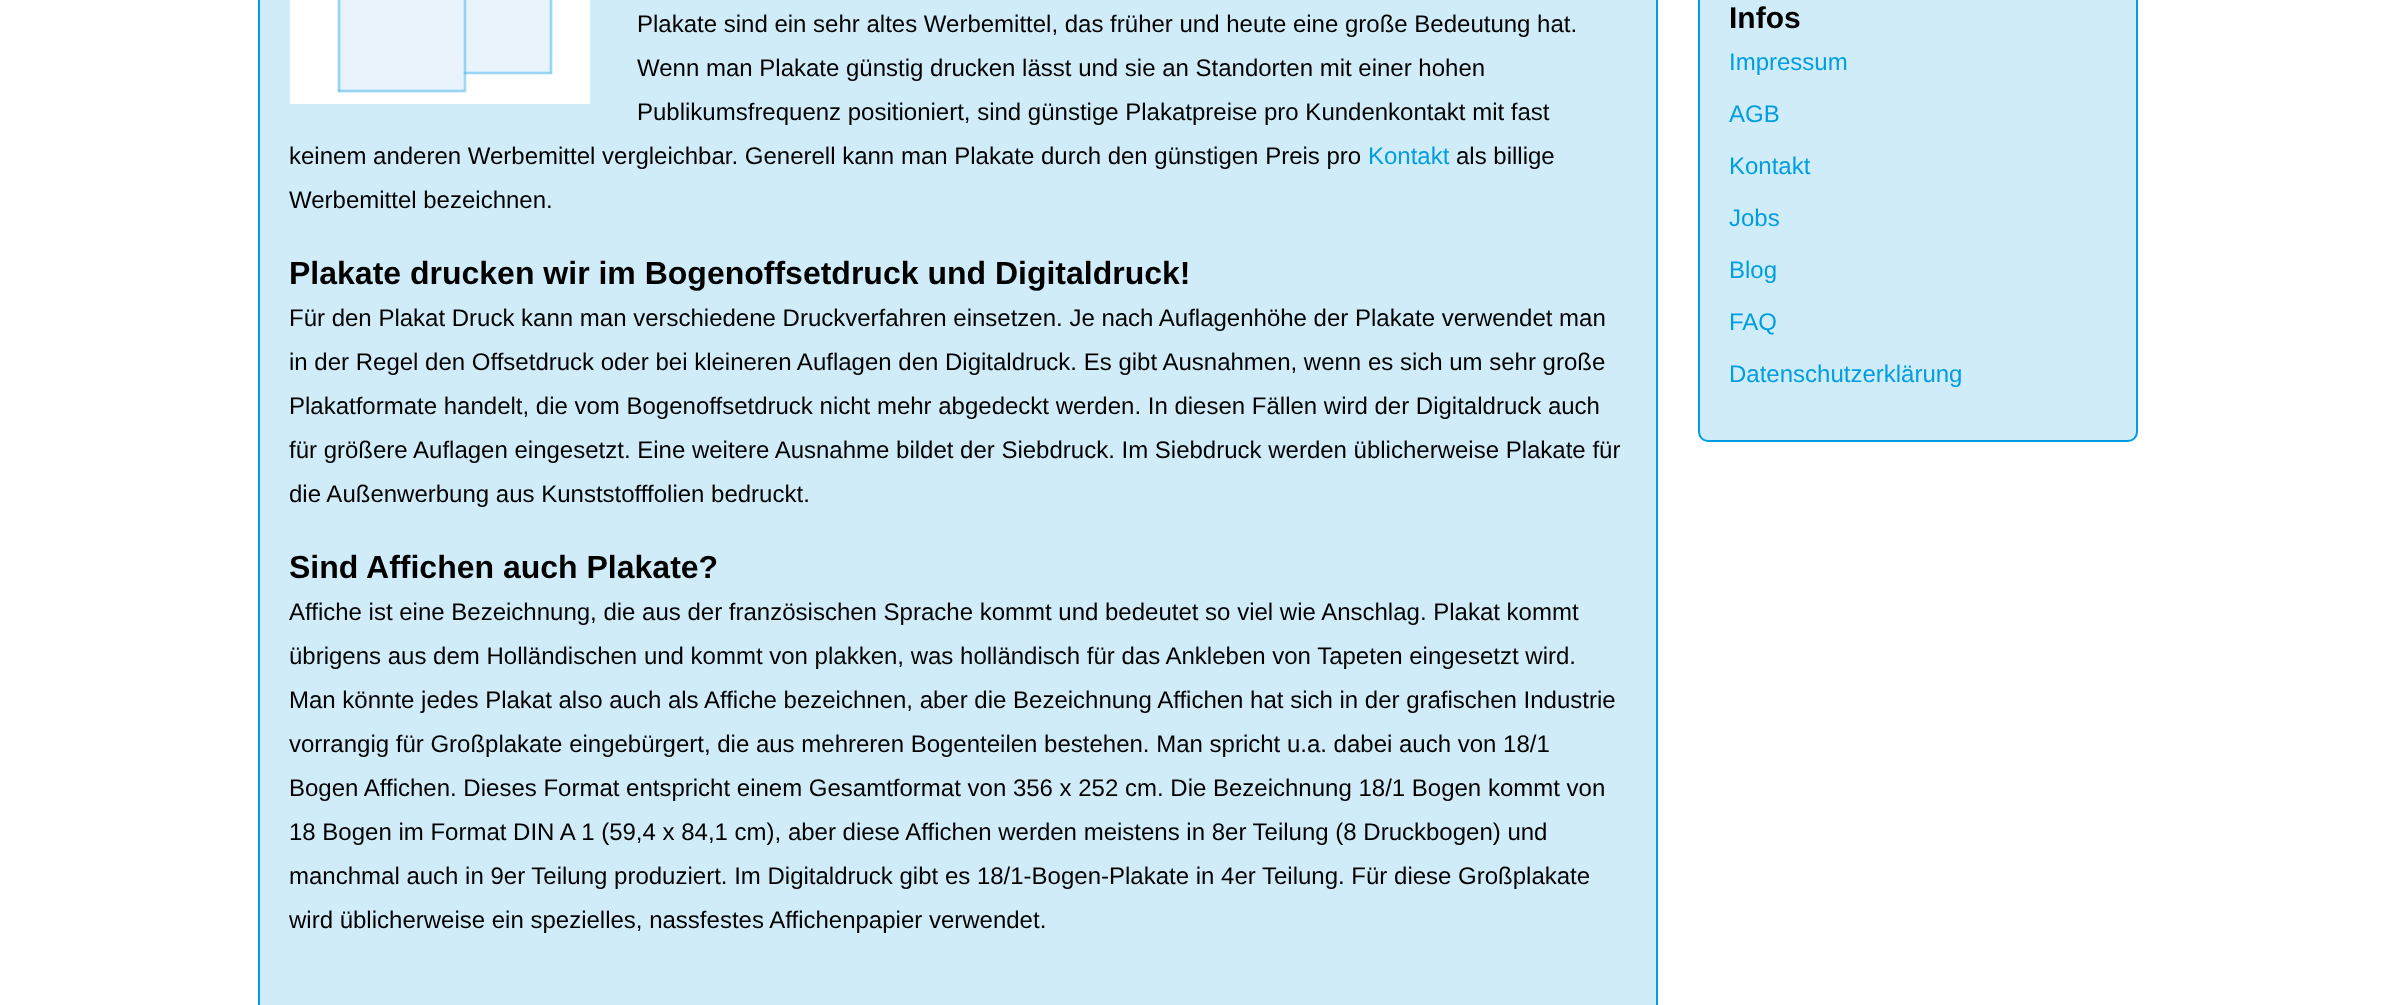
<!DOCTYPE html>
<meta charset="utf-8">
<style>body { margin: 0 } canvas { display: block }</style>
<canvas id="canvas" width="2394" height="1005"></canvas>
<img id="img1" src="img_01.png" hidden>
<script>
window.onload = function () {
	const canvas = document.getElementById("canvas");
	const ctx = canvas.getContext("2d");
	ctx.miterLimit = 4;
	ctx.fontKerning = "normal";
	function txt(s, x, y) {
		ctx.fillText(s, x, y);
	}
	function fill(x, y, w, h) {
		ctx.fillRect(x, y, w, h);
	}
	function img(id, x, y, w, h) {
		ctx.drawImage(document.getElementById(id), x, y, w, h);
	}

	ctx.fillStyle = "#FFFFFF";
	fill(0, 0, 2394, 1005);
	ctx.fillStyle = "#D0ECF9";
	ctx.beginPath();
	ctx.rect(259, -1, 1398, 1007);
	ctx.fill();
	ctx.strokeStyle = "#009EE0";
	ctx.lineWidth = 2;
	ctx.stroke();
	img("img1", 290, 0, 300, 104);
	ctx.beginPath();
	ctx.roundRect(1699, -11, 438, 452, 9);
	ctx.fill();
	ctx.stroke();
	ctx.font = "24px Liberation Sans";
	ctx.fillStyle = "#000000";
	txt("Plakate sind ein sehr altes Werbemittel, das früher und heute eine große Bedeutung hat.", 637, 32);
	txt("Wenn man Plakate günstig drucken lässt und sie an Standorten mit einer hohen", 637, 76);
	txt("Publikumsfrequenz positioniert, sind günstige Plakatpreise pro Kundenkontakt mit fast", 637, 120);
	txt("keinem anderen Werbemittel vergleichbar. Generell kann man Plakate durch den günstigen Preis pro", 289, 164);
	ctx.fillStyle = "#009EE0";
	txt("Kontakt", 1368, 164);
	ctx.fillStyle = "#000000";
	txt("als billige", 1456, 164);
	txt("Werbemittel bezeichnen.", 289, 208);
	ctx.font = "bold 32px Liberation Sans";
	txt("Plakate drucken wir im Bogenoffsetdruck und Digitaldruck!", 289, 284);
	ctx.font = "24px Liberation Sans";
	txt("Für den Plakat Druck kann man verschiedene Druckverfahren einsetzen. Je nach Auflagenhöhe der Plakate verwendet man", 289, 326);
	txt("in der Regel den Offsetdruck oder bei kleineren Auflagen den Digitaldruck. Es gibt Ausnahmen, wenn es sich um sehr große", 289, 370);
	txt("Plakatformate handelt, die vom Bogenoffsetdruck nicht mehr abgedeckt werden. In diesen Fällen wird der Digitaldruck auch", 289, 414);
	txt("für größere Auflagen eingesetzt. Eine weitere Ausnahme bildet der Siebdruck. Im Siebdruck werden üblicherweise Plakate für", 289, 458);
	txt("die Außenwerbung aus Kunststofffolien bedruckt.", 289, 502);
	ctx.font = "bold 32px Liberation Sans";
	txt("Sind Affichen auch Plakate?", 289, 578);
	ctx.font = "24px Liberation Sans";
	txt("Affiche ist eine Bezeichnung, die aus der französischen Sprache kommt und bedeutet so viel wie Anschlag. Plakat kommt", 289, 620);
	txt("übrigens aus dem Holländischen und kommt von plakken, was holländisch für das Ankleben von Tapeten eingesetzt wird.", 289, 664);
	txt("Man könnte jedes Plakat also auch als Affiche bezeichnen, aber die Bezeichnung Affichen hat sich in der grafischen Industrie", 289, 708);
	txt("vorrangig für Großplakate eingebürgert, die aus mehreren Bogenteilen bestehen. Man spricht u.a. dabei auch von 18/1", 289, 752);
	txt("Bogen Affichen. Dieses Format entspricht einem Gesamtformat von 356 x 252 cm. Die Bezeichnung 18/1 Bogen kommt von", 289, 796);
	txt("18 Bogen im Format DIN A 1 (59,4 x 84,1 cm), aber diese Affichen werden meistens in 8er Teilung (8 Druckbogen) und", 289, 840);
	txt("manchmal auch in 9er Teilung produziert. Im Digitaldruck gibt es 18/1-Bogen-Plakate in 4er Teilung. Für diese Großplakate", 289, 884);
	txt("wird üblicherweise ein spezielles, nassfestes Affichenpapier verwendet.", 289, 928);
	ctx.font = "bold 30px Liberation Sans";
	txt("Infos", 1729, 28);
	ctx.font = "24px Liberation Sans";
	ctx.fillStyle = "#009EE0";
	txt("Impressum", 1729, 70);
	txt("AGB", 1729, 122);
	txt("Kontakt", 1729, 174);
	txt("Jobs", 1729, 226);
	txt("Blog", 1729, 278);
	txt("FAQ", 1729, 330);
	txt("Datenschutzerklärung", 1729, 382);
};
</script>
